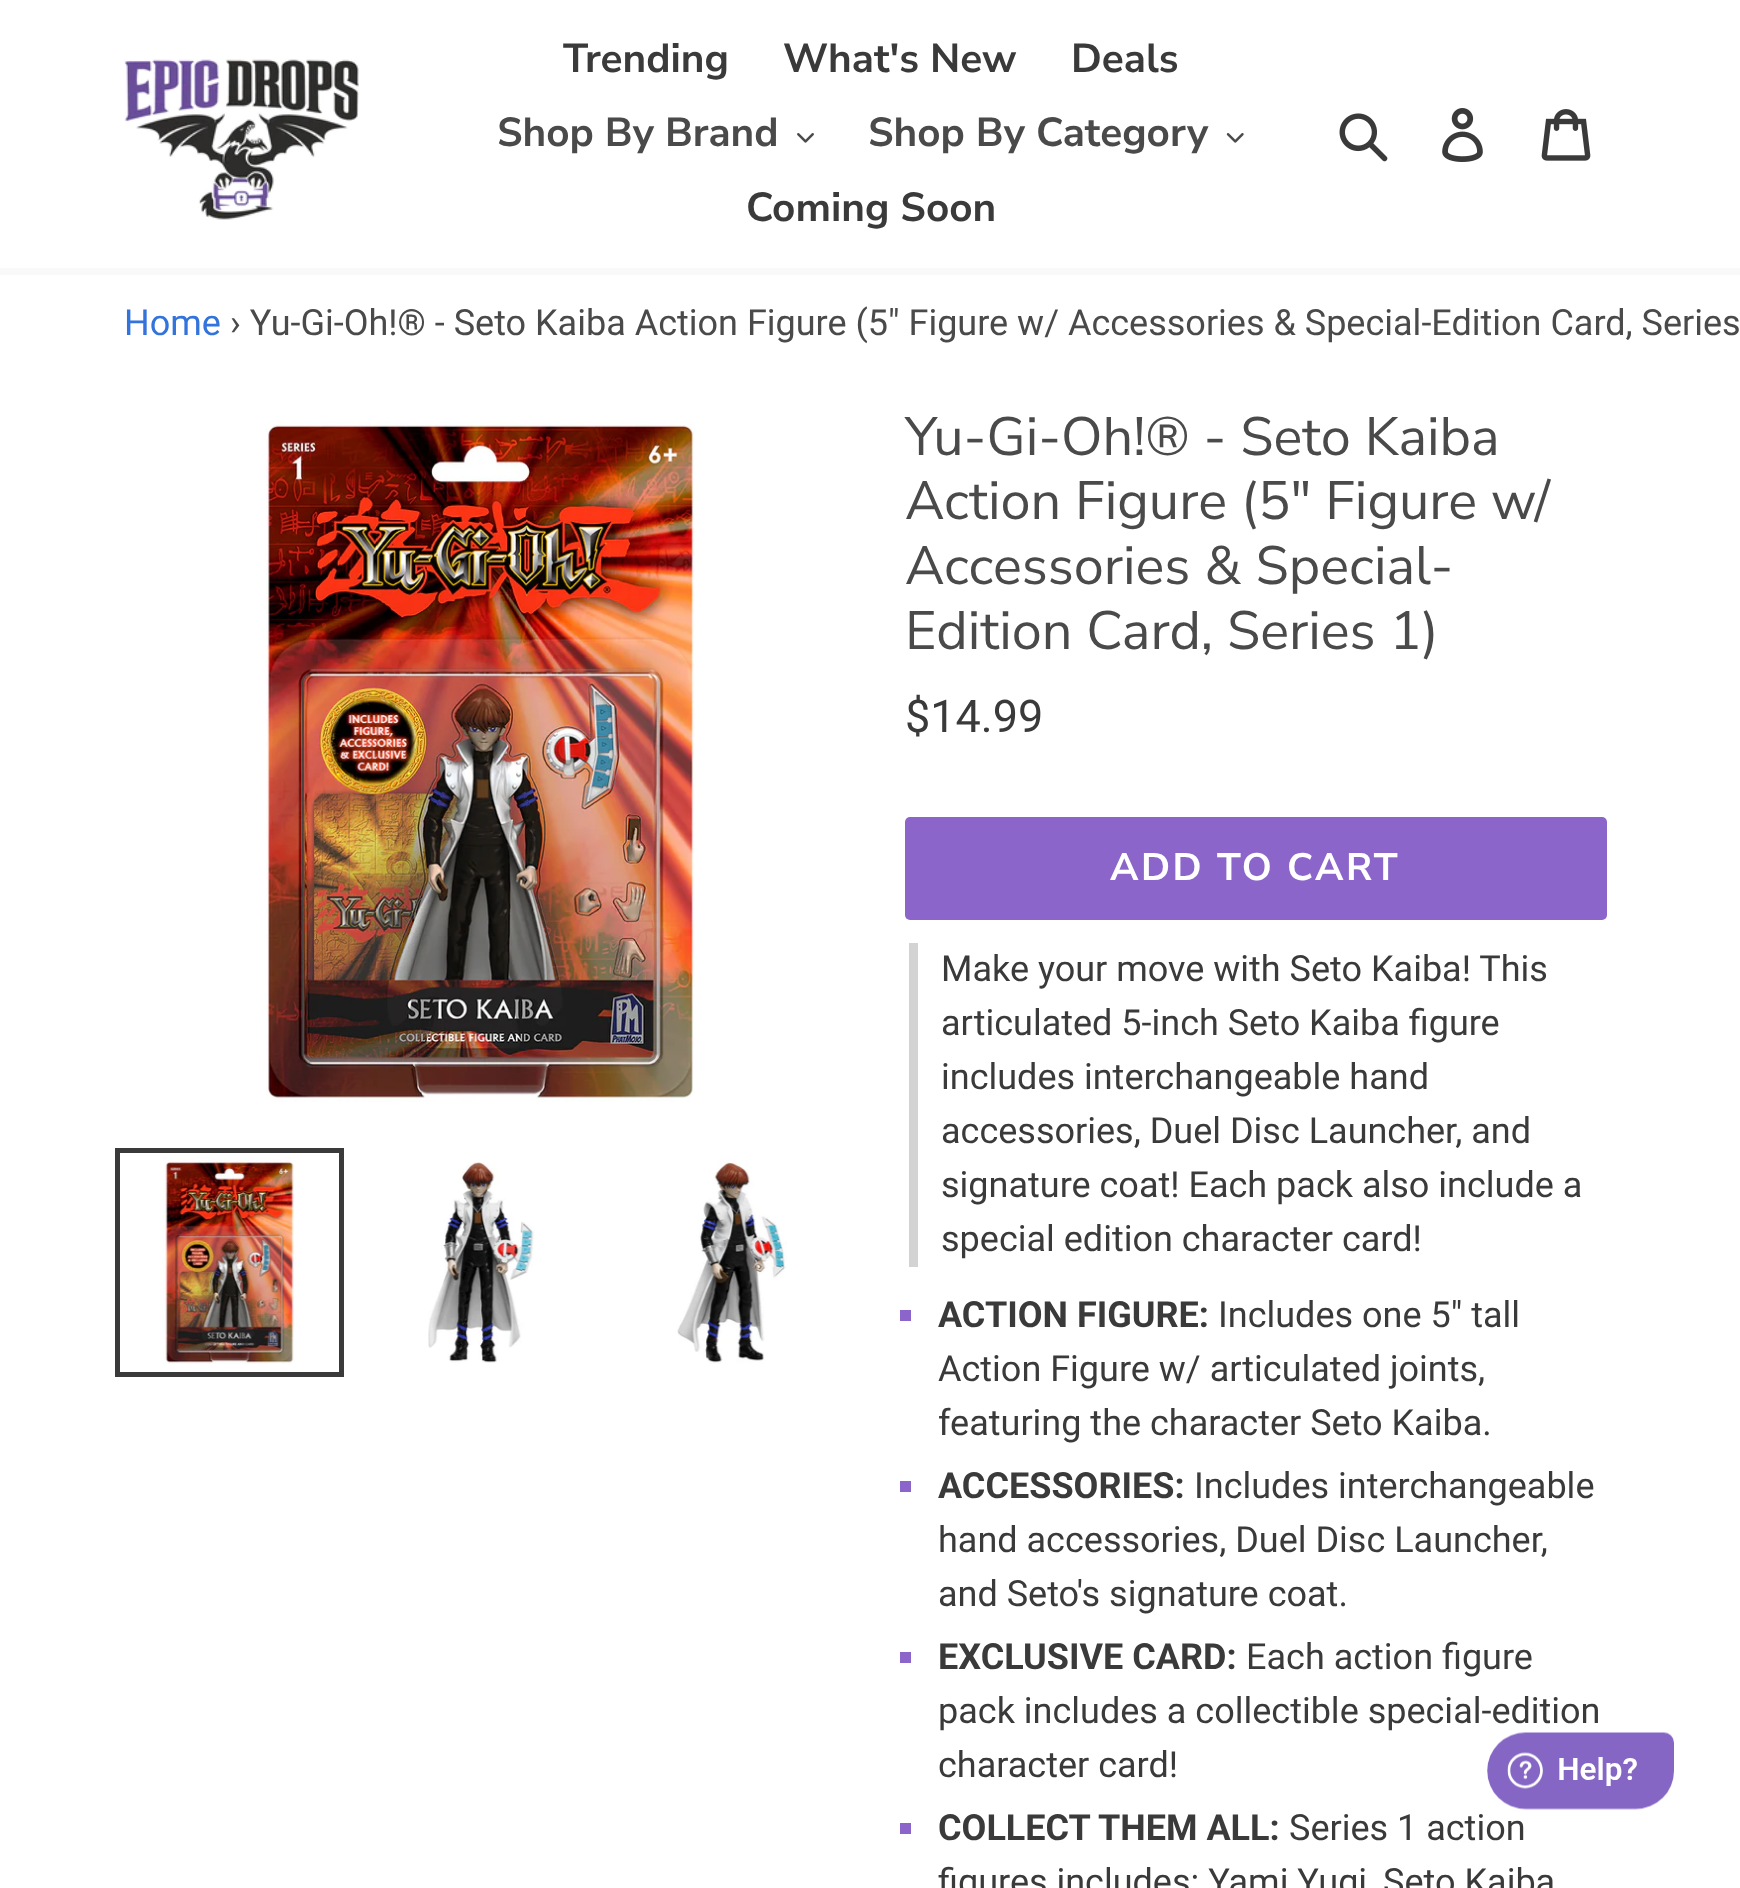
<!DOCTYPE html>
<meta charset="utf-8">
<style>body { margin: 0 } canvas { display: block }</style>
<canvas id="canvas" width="1740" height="1888"></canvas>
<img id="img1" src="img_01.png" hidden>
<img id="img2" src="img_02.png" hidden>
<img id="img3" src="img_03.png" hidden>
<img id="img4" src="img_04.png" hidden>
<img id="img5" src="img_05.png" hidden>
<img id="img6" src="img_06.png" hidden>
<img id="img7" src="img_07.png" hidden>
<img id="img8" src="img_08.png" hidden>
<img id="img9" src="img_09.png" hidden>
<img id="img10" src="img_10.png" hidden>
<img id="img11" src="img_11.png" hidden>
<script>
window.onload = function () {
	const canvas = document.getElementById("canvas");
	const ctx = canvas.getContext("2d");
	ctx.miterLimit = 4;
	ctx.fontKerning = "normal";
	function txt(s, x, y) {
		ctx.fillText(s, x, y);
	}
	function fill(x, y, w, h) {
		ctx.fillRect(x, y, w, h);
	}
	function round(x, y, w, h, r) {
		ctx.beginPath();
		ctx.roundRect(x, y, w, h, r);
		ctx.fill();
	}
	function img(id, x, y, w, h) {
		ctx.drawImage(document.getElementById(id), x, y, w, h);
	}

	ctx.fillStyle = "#FFFFFF";
	fill(0, 0, 1740, 1888);
	ctx.fillStyle = "#F9F9F9";
	fill(0, 268, 1740, 7);
	img("img1", 124, 59, 235, 161);
	img("img2", 797, 133, 17, 10);
	img("img3", 1226, 133, 18, 10);
	img("img4", 1339, 113, 49, 49);
	img("img5", 1442, 108, 41, 54);
	img("img6", 1541, 109, 50, 52);
	img("img7", 266, 421, 429, 681);
	ctx.strokeStyle = "#3A3A3A";
	ctx.lineWidth = 5;
	ctx.strokeRect(117.5, 1150.5, 224, 224);
	img("img8", 162, 1157, 132, 207);
	img("img9", 428, 1162, 107, 201);
	img("img10", 677, 1159, 110, 205);
	ctx.fillStyle = "#8B65CA";
	round(905, 817, 702, 103, 5);
	ctx.fillStyle = "#D3D3D3";
	fill(909, 943, 9, 324);
	ctx.fillStyle = "#8B65CA";
	fill(900, 1310, 11, 11);
	fill(900, 1481, 11, 11);
	fill(900, 1652, 11, 11);
	fill(900, 1823, 11, 11);
	img("img11", 1487, 1732, 187, 78);
	ctx.font = "bold 40.5px Nunito Sans";
	ctx.fillStyle = "#3A3A3A";
	txt("Trending", 563, 72);
	txt("What's New", 783, 72);
	txt("Deals", 1071, 72);
	ctx.fillStyle = "#4A4A4A";
	txt("Shop By Brand", 497, 146);
	txt("Shop By Category", 868, 146);
	ctx.fillStyle = "#3A3A3A";
	txt("Coming Soon", 746, 221);
	ctx.font = "36px Roboto";
	ctx.fillStyle = "#3273DC";
	txt("Home", 124, 335);
	ctx.fillStyle = "#4A4A4A";
	txt("› Yu-Gi-Oh!® - Seto Kaiba Action Figure (5\" Figure w/ Accessories & Special-Edition Card, Series", 230, 335);
	ctx.font = "54px Nunito Sans";
	txt("Yu-Gi-Oh!® - Seto Kaiba", 905, 455);
	txt("Action Figure (5\" Figure w/", 905, 519);
	txt("Accessories & Special-", 905, 584);
	txt("Edition Card, Series 1)", 905, 649);
	ctx.font = "45px Roboto";
	ctx.fillStyle = "#3A3A3A";
	txt("$14.99", 905, 732);
	ctx.letterSpacing = "2.5px";
	ctx.font = "bold 38.25px Nunito Sans";
	ctx.fillStyle = "#FFFFFF";
	txt("ADD TO CART", 1110, 880);
	ctx.letterSpacing = "0px";
	ctx.font = "36px Roboto";
	ctx.fillStyle = "#3A3A3A";
	txt("Make your move with Seto Kaiba! This", 941, 981);
	txt("articulated 5-inch Seto Kaiba figure", 941, 1035);
	txt("includes interchangeable hand", 941, 1089);
	txt("accessories, Duel Disc Launcher, and", 941, 1143);
	txt("signature coat! Each pack also include a", 941, 1197);
	txt("special edition character card!", 941, 1251);
	ctx.font = "bold 36px Roboto";
	txt("ACTION FIGURE:", 938, 1327);
	ctx.font = "36px Roboto";
	txt("Includes one 5\" tall", 1218, 1327);
	txt("Action Figure w/ articulated joints,", 938, 1381);
	txt("featuring the character Seto Kaiba.", 938, 1435);
	ctx.font = "bold 36px Roboto";
	txt("ACCESSORIES:", 938, 1498);
	ctx.font = "36px Roboto";
	txt("Includes interchangeable", 1194, 1498);
	txt("hand accessories, Duel Disc Launcher,", 938, 1552);
	txt("and Seto's signature coat.", 938, 1606);
	ctx.font = "bold 36px Roboto";
	txt("EXCLUSIVE CARD:", 938, 1669);
	ctx.font = "36px Roboto";
	txt("Each action figure", 1246, 1669);
	txt("pack includes a collectible special-edition", 938, 1723);
	txt("character card!", 938, 1777);
	ctx.font = "bold 36px Roboto";
	txt("COLLECT THEM ALL:", 938, 1840);
	ctx.font = "36px Roboto";
	txt("Series 1 action", 1289, 1840);
	txt("figures includes: Yami Yugi, Seto Kaiba", 938, 1894);
};
</script>
